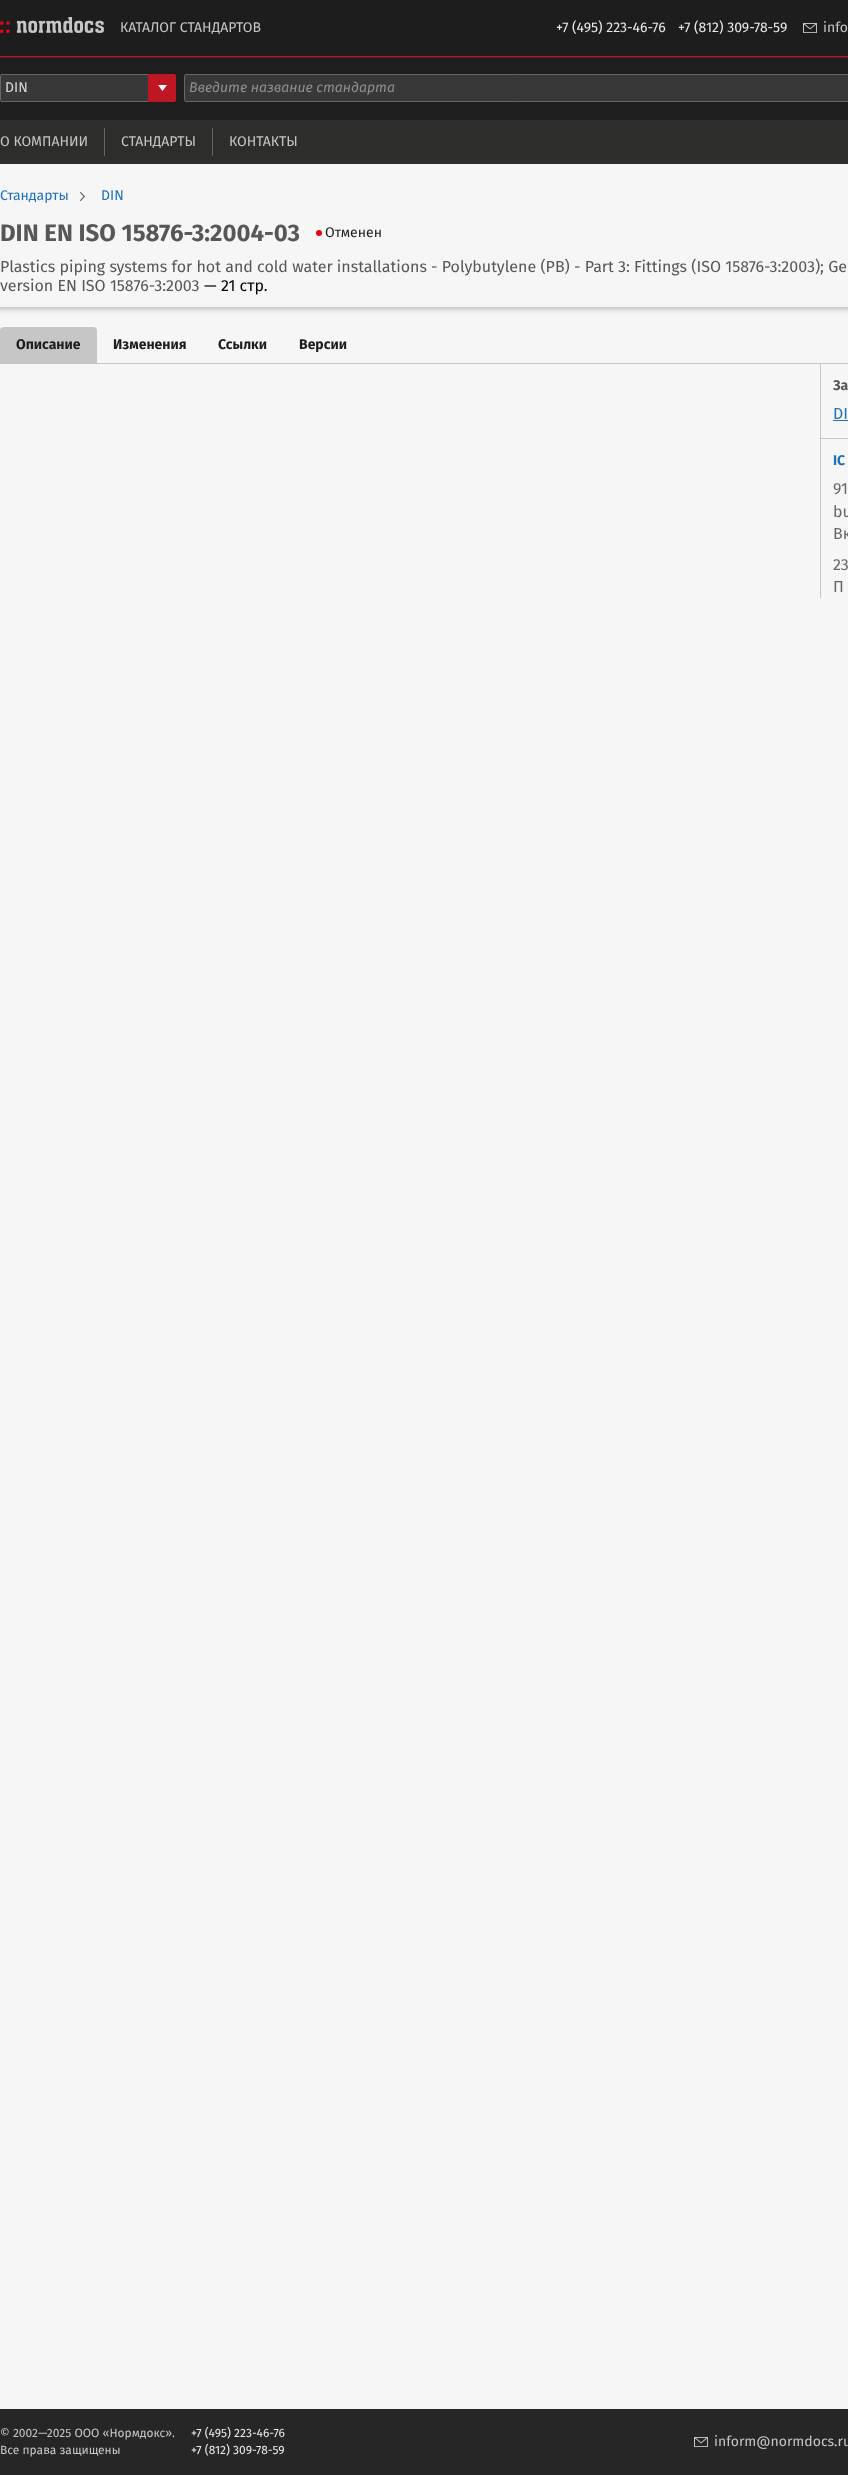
<!DOCTYPE html>
<meta charset="utf-8">
<style>body { margin: 0 } canvas { display: block }</style>
<canvas id="canvas" width="848" height="2475"></canvas>
<img id="img1" src="img_01.png" hidden>
<img id="img2" src="img_02.png" hidden>
<img id="img3" src="img_03.png" hidden>
<img id="img4" src="img_04.png" hidden>
<script>
window.onload = function () {
	const canvas = document.getElementById("canvas");
	const ctx = canvas.getContext("2d");
	ctx.miterLimit = 4;
	ctx.fontKerning = "normal";
	function txt(s, x, y) {
		ctx.fillText(s, x, y);
	}
	function fill(x, y, w, h) {
		ctx.fillRect(x, y, w, h);
	}
	function round(x, y, w, h, r) {
		ctx.beginPath();
		ctx.roundRect(x, y, w, h, r);
		ctx.fill();
	}
	function img(id, x, y, w, h) {
		ctx.drawImage(document.getElementById(id), x, y, w, h);
	}
	let gradient;

	ctx.fillStyle = "#F6F6F6";
	fill(0, 0, 848, 2475);
	ctx.fillStyle = "#1D1D1D";
	fill(0, 0, 848, 56);
	ctx.fillStyle = "#E30613";
	fill(0, 56, 848, 1);
	img("img1", 0, 17, 104, 16);
	img("img2", 803, 23, 14, 10);
	ctx.fillStyle = "#1E1E1E";
	fill(0, 58, 848, 62);
	ctx.fillStyle = "#2D2D2B";
	fill(0, 57, 848, 1);
	ctx.fillStyle = "#383838";
	round(0, 74, 176, 28, 2);
	ctx.fillStyle = "#666666";
	fill(1, 74, 147, 1);
	fill(1, 101, 147, 1);
	fill(0, 75, 1, 26);
	ctx.fillStyle = "#BE1622";
	ctx.beginPath();
	ctx.roundRect(148.5, 74.5, 27, 27, [0, 1.5, 1.5, 0]);
	ctx.fill();
	ctx.strokeStyle = "#BE1622";
	ctx.stroke();
	ctx.fillStyle = "#FFFFFF";
	ctx.beginPath();
	ctx.moveTo(167, 85);
	ctx.lineTo(162.5, 91);
	ctx.lineTo(158, 85);
	ctx.closePath();
	ctx.fill();
	ctx.fillStyle = "#383838";
	ctx.beginPath();
	ctx.roundRect(184.5, 74.5, 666, 27, 1.5);
	ctx.fill();
	ctx.strokeStyle = "#666666";
	ctx.stroke();
	ctx.fillStyle = "#2D2D2B";
	fill(0, 120, 848, 44);
	ctx.fillStyle = "#666666";
	fill(104, 128, 1, 28);
	fill(212, 128, 1, 28);
	img("img3", 80, 192, 5, 9);
	ctx.fillStyle = "#E30613";
	ctx.beginPath();
	ctx.arc(319, 233, 3, 0, Math.PI * 2);
	ctx.fill();
	gradient = ctx.createLinearGradient(570, 307, 570, 315);
	gradient.addColorStop(0, "#C6C6C6");
	gradient.addColorStop(0.5, "#EAEAEA");
	gradient.addColorStop(1, "#F6F6F6");
	ctx.fillStyle = gradient;
	fill(0, 307, 848, 7);
	ctx.fillStyle = "#C6C6C6";
	fill(0, 363, 848, 1);
	ctx.beginPath();
	ctx.roundRect(0, 327, 97, 36, [4, 4, 0, 0]);
	ctx.fill();
	fill(820, 364, 1, 234);
	fill(821, 438, 27, 1);
	ctx.fillStyle = "#1D71B8";
	fill(833, 420, 15, 1);
	ctx.fillStyle = "#262626";
	fill(0, 2409, 848, 66);
	img("img4", 694, 2437, 14, 10);
	ctx.font = "14px Fira Sans";
	ctx.fillStyle = "#C6C6C6";
	txt("КАТАЛОГ СТАНДАРТОВ", 120, 32);
	ctx.fillStyle = "#E9E9E9";
	txt("+7 (495) 223-46-76", 556, 32);
	txt("+7 (812) 309-78-59", 678, 32);
	ctx.fillStyle = "#C6C6C6";
	txt("info", 823, 32);
	ctx.fillStyle = "#DADADA";
	txt("DIN", 5, 92);
	ctx.font = "italic 14px Fira Sans";
	ctx.fillStyle = "#8F8F8F";
	txt("Введите название стандарта", 189, 92);
	ctx.font = "14px Fira Sans";
	ctx.fillStyle = "#C6C6C6";
	txt("О КОМПАНИИ", 0, 146);
	txt("СТАНДАРТЫ", 121, 146);
	txt("КОНТАКТЫ", 229, 146);
	ctx.fillStyle = "#1D71B8";
	txt("Стандарты", 0, 200);
	txt("DIN", 101, 200);
	ctx.font = "bold 24px Fira Sans";
	ctx.fillStyle = "#575757";
	txt("DIN EN ISO 15876-3:2004-03", 0, 241);
	ctx.font = "14px Fira Sans";
	ctx.fillStyle = "#1D1D1D";
	txt("Отменен", 325, 237);
	ctx.font = "16px Fira Sans";
	ctx.fillStyle = "#575757";
	txt("Plastics piping systems for hot and cold water installations - Polybutylene (PB) - Part 3: Fittings (ISO 15876-3:2003); Ge", 0, 272);
	txt("version EN ISO 15876-3:2003", 0, 291);
	ctx.fillStyle = "#000000";
	txt("— 21 стр.", 204, 291);
	ctx.font = "bold 14px Fira Sans";
	ctx.fillStyle = "#1D1D1D";
	txt("Описание", 16, 349);
	txt("Изменения", 113, 349);
	txt("Ссылки", 218, 349);
	txt("Версии", 299, 349);
	ctx.fillStyle = "#575757";
	txt("За", 833, 390);
	ctx.font = "16px Fira Sans";
	ctx.fillStyle = "#1D71B8";
	txt("DI", 833, 419);
	ctx.font = "bold 14px Fira Sans";
	txt("IC", 833, 465);
	ctx.font = "16px Fira Sans";
	ctx.fillStyle = "#666666";
	txt("91", 833, 494);
	txt("bu", 833, 517);
	txt("Вк", 833, 539);
	txt("23", 833, 570);
	txt("П", 833, 592);
	ctx.font = "12px Fira Sans";
	ctx.fillStyle = "#C6C6C6";
	txt("© 2002—2025 ООО «Нормдокс».", 0, 2437);
	txt("Все права защищены", 0, 2454);
	ctx.fillStyle = "#E9E9E9";
	txt("+7 (495) 223-46-76", 191, 2437);
	txt("+7 (812) 309-78-59", 191, 2454);
	ctx.font = "14px Fira Sans";
	ctx.fillStyle = "#C6C6C6";
	txt("inform@normdocs.ru", 714, 2446);
};
</script>
